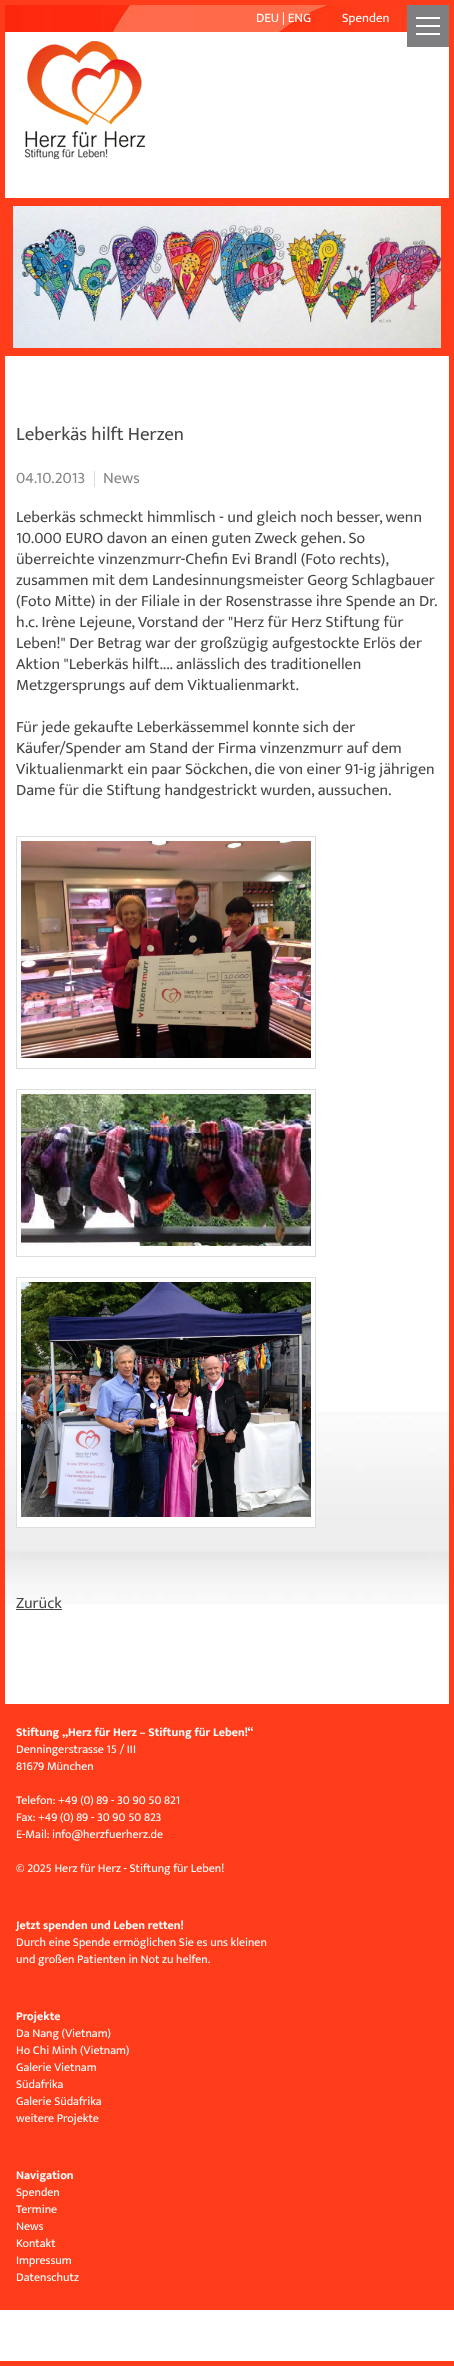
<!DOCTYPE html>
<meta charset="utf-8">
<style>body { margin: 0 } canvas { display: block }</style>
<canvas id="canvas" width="454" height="2366"></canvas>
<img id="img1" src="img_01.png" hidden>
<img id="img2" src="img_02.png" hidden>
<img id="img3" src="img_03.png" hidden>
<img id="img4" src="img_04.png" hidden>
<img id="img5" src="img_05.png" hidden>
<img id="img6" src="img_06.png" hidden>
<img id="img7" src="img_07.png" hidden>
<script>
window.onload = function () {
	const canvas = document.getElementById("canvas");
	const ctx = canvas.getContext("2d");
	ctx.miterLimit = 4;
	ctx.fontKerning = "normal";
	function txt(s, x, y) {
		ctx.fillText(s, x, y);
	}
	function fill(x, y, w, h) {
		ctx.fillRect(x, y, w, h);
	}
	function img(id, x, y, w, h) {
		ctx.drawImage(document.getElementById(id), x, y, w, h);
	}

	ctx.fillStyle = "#FFFFFF";
	fill(0, 0, 454, 2366);
	ctx.fillStyle = "#FF3D1A";
	fill(449, 0, 5, 2310);
	fill(0, 0, 5, 2310);
	fill(0, 0, 454, 5);
	img("img1", 5, 5, 402, 27);
	ctx.fillStyle = "#7F7F81";
	fill(407, 5, 42, 42);
	ctx.fillStyle = "#FFFFFF";
	fill(416, 17, 24, 2);
	fill(416, 33, 24, 2);
	fill(416, 25, 24, 2);
	img("img2", 25, 41, 120, 118);
	ctx.strokeStyle = "#FF3D1A";
	ctx.lineWidth = 8;
	ctx.strokeRect(9, 202, 436, 150);
	img("img3", 13, 206, 428, 142);
	img("img4", 5, 1412, 444, 192);
	ctx.fillStyle = "#DDDDDD";
	fill(94, 471, 1, 16);
	ctx.strokeStyle = "#DDDDDD";
	ctx.lineWidth = 1;
	ctx.strokeRect(16.5, 836.5, 299, 232);
	img("img5", 21, 841, 290, 217);
	ctx.strokeRect(16.5, 1089.5, 299, 167);
	img("img6", 21, 1094, 290, 152);
	ctx.fillStyle = "#FFFFFF";
	fill(17, 1412, 298, 115);
	ctx.strokeRect(16.5, 1277.5, 299, 250);
	img("img7", 21, 1282, 290, 235);
	ctx.fillStyle = "#484849";
	fill(16, 1609, 46, 1);
	ctx.fillStyle = "#FF3D1A";
	fill(5, 1704, 444, 606);
	fill(0, 2361, 454, 5);
	ctx.font = "13px Mukta";
	ctx.fillStyle = "#FFFFFF";
	txt("DEU | ENG", 256, 22);
	txt("Spenden", 342, 22);
	ctx.font = "19px Mukta";
	ctx.fillStyle = "#484849";
	txt("Leberkäs hilft Herzen", 16, 440);
	ctx.font = "16px Mukta";
	ctx.fillStyle = "#888888";
	txt("04.10.2013", 16, 483);
	txt("News", 103, 483);
	ctx.fillStyle = "#484849";
	txt("Leberkäs schmeckt himmlisch - und gleich noch besser, wenn", 16, 522);
	txt("10.000 EURO davon an einen guten Zweck gehen. So", 16, 543);
	txt("überreichte vinzenzmurr-Chefin Evi Brandl (Foto rechts),", 16, 564);
	txt("zusammen mit dem Landesinnungsmeister Georg Schlagbauer", 16, 585);
	txt("(Foto Mitte) in der Filiale in der Rosenstrasse ihre Spende an Dr.", 16, 606);
	txt("h.c. Irène Lejeune, Vorstand der \"Herz für Herz Stiftung für", 16, 627);
	txt("Leben!\" Der Betrag war der großzügig aufgestockte Erlös der", 16, 648);
	txt("Aktion \"Leberkäs hilft.... anlässlich des traditionellen", 16, 669);
	txt("Metzgersprungs auf dem Viktualienmarkt.", 16, 690);
	txt("Für jede gekaufte Leberkässemmel konnte sich der", 16, 732);
	txt("Käufer/Spender am Stand der Firma vinzenzmurr auf dem", 16, 753);
	txt("Viktualienmarkt ein paar Söckchen, die von einer 91-ig jährigen", 16, 774);
	txt("Dame für die Stiftung handgestrickt wurden, aussuchen.", 16, 795);
	txt("Zurück", 16, 1608);
	ctx.font = "bold 12px Mukta";
	ctx.fillStyle = "#FFFFFF";
	txt("Stiftung „Herz für Herz – Stiftung für Leben!“", 16, 1736);
	ctx.font = "12px Mukta";
	txt("Denningerstrasse 15 / III", 16, 1753);
	txt("81679 München", 16, 1770);
	txt("Telefon: +49 (0) 89 - 30 90 50 821", 16, 1804);
	txt("Fax: +49 (0) 89 - 30 90 50 823", 16, 1821);
	txt("E-Mail: info@herzfuerherz.de", 16, 1838);
	txt("© 2025 Herz für Herz - Stiftung für Leben!", 16, 1872);
	ctx.font = "bold 12px Mukta";
	txt("Jetzt spenden und Leben retten!", 16, 1929);
	ctx.font = "12px Mukta";
	txt("Durch eine Spende ermöglichen Sie es uns kleinen", 16, 1946);
	txt("und großen Patienten in Not zu helfen.", 16, 1963);
	ctx.font = "bold 12px Mukta";
	txt("Projekte", 16, 2020);
	ctx.font = "12px Mukta";
	txt("Da Nang (Vietnam)", 16, 2037);
	txt("Ho Chi Minh (Vietnam)", 16, 2054);
	txt("Galerie Vietnam", 16, 2071);
	txt("Südafrika", 16, 2088);
	txt("Galerie Südafrika", 16, 2105);
	txt("weitere Projekte", 16, 2122);
	ctx.font = "bold 12px Mukta";
	txt("Navigation", 16, 2179);
	ctx.font = "12px Mukta";
	txt("Spenden", 16, 2196);
	txt("Termine", 16, 2213);
	txt("News", 16, 2230);
	txt("Kontakt", 16, 2247);
	txt("Impressum", 16, 2264);
	txt("Datenschutz", 16, 2281);
};
</script>
